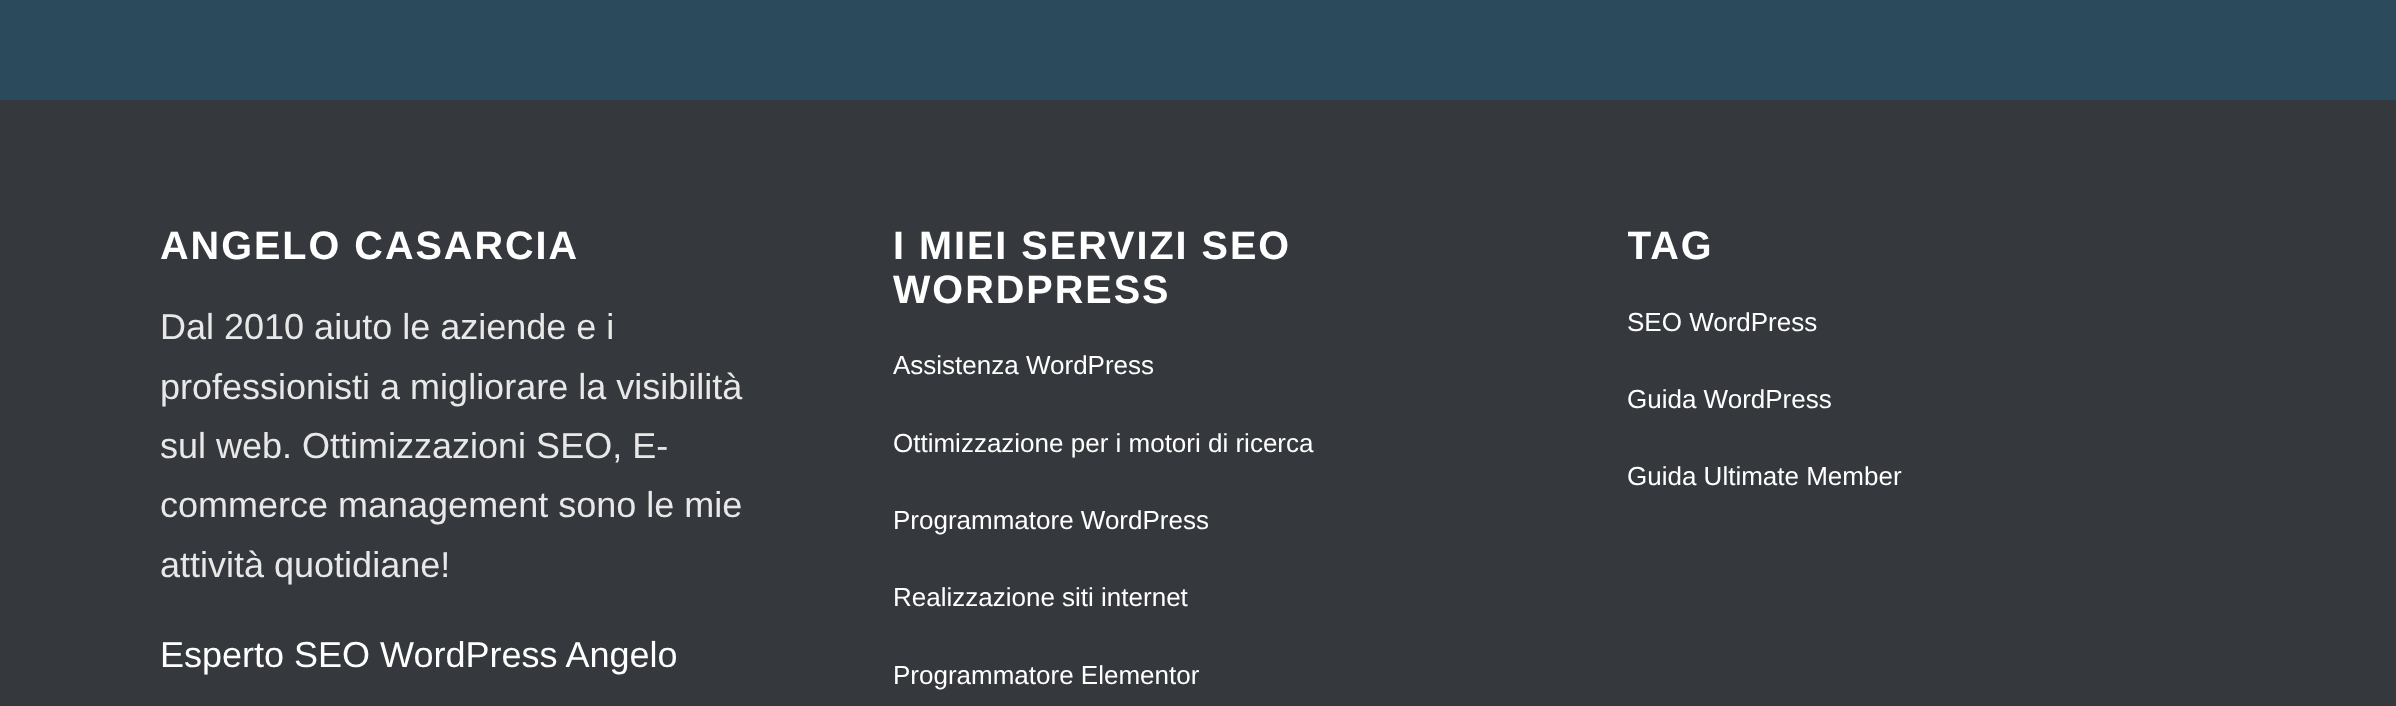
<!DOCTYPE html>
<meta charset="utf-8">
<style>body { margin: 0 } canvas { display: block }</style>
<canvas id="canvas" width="2396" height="706"></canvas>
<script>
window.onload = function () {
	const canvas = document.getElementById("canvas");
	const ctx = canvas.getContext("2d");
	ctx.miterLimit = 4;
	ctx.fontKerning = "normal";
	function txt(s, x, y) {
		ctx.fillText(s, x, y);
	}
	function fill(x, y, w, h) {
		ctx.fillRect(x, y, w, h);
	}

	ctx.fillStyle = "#2B4B5D";
	fill(0, 0, 2396, 706);
	ctx.fillStyle = "#35383C";
	fill(0, 100, 2396, 606);
	ctx.letterSpacing = "2px";
	ctx.font = "bold 39.6px Liberation Sans";
	ctx.fillStyle = "#FFFFFF";
	txt("ANGELO CASARCIA", 160, 259);
	ctx.letterSpacing = "0px";
	ctx.font = "36px Liberation Sans";
	ctx.fillStyle = "#E8E8E8";
	txt("Dal 2010 aiuto le aziende e i", 160, 339);
	txt("professionisti a migliorare la visibilità", 160, 399);
	txt("sul web. Ottimizzazioni SEO, E-", 160, 458);
	txt("commerce management sono le mie", 160, 517);
	txt("attività quotidiane!", 160, 577);
	ctx.fillStyle = "#FFFFFF";
	txt("Esperto SEO WordPress Angelo", 160, 667);
	ctx.letterSpacing = "2px";
	ctx.font = "bold 39.6px Liberation Sans";
	txt("I MIEI SERVIZI SEO", 893, 259);
	txt("WORDPRESS", 893, 303);
	ctx.letterSpacing = "0px";
	ctx.font = "26px Liberation Sans";
	txt("Assistenza WordPress", 893, 374);
	txt("Ottimizzazione per i motori di ricerca", 893, 452);
	txt("Programmatore WordPress", 893, 529);
	txt("Realizzazione siti internet", 893, 606);
	txt("Programmatore Elementor", 893, 684);
	ctx.save();
	ctx.beginPath();
	ctx.rect(1628, 192, 608, 324);
	ctx.clip();
	ctx.letterSpacing = "2px";
	ctx.font = "bold 39.6px Liberation Sans";
	txt("TAG", 1627, 259);
	ctx.restore();
	txt("SEO WordPress", 1627, 331);
	txt("Guida WordPress", 1627, 408);
	txt("Guida Ultimate Member", 1627, 485);
};
</script>
